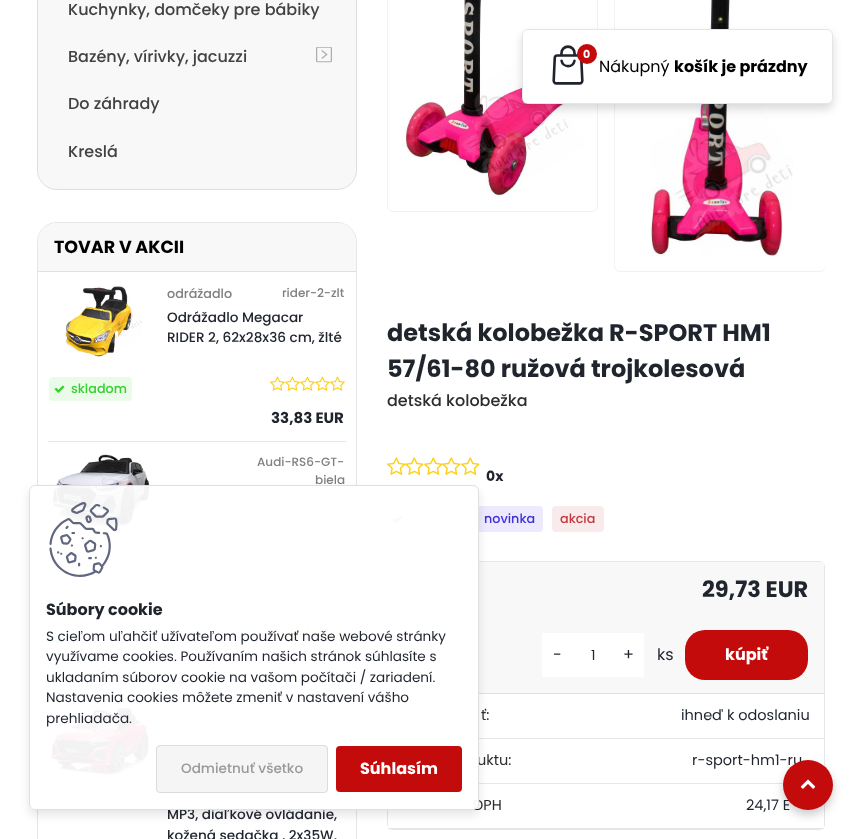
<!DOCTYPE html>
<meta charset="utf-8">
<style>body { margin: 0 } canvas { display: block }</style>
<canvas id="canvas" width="862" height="839"></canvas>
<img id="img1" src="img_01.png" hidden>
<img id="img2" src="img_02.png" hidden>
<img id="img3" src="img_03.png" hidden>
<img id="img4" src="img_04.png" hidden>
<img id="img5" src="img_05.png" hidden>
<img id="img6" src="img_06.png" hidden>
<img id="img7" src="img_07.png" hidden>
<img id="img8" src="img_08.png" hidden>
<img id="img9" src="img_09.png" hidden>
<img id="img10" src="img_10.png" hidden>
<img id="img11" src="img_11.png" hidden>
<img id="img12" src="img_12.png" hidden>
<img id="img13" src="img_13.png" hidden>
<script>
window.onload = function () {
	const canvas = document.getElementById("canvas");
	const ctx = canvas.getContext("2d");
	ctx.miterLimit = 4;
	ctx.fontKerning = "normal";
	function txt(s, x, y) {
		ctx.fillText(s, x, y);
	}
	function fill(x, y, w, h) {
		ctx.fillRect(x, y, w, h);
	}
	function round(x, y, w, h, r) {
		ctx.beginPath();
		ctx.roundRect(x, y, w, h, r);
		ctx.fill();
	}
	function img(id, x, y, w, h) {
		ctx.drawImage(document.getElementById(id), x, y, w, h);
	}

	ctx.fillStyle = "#FFFFFF";
	fill(0, 0, 862, 839);
	ctx.fillStyle = "#F8F8F8";
	round(37, -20, 320, 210, 20);
	ctx.beginPath();
	ctx.roundRect(37.5, -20.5, 319, 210, 19.5);
	ctx.strokeStyle = "rgba(0, 0, 0, 0.1)";
	ctx.stroke();
	img("img1", 316, 47, 16, 16);
	ctx.beginPath();
	ctx.roundRect(37.5, 222.5, 319, 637, 19.5);
	ctx.strokeStyle = "#E6E6E6";
	ctx.stroke();
	ctx.beginPath();
	ctx.roundRect(38, 223, 318, 49, [19, 19, 0, 0]);
	ctx.fill();
	ctx.fillStyle = "#DFDFDF";
	fill(38, 271, 318, 1);
	ctx.fillStyle = "#E6E6E6";
	fill(48, 441, 298, 1);
	img("img2", 64, 286, 78, 71);
	ctx.fillStyle = "#EBFBEA";
	round(49, 377, 83, 24, 4);
	img("img3", 54, 385, 11, 8);
	img("img4", 270, 376, 15, 15);
	img("img4", 285, 376, 15, 15);
	img("img4", 300, 376, 15, 15);
	img("img4", 315, 376, 15, 15);
	img("img4", 330, 376, 15, 15);
	ctx.fillStyle = "#E6E6E6";
	fill(48, 691, 298, 1);
	img("img5", 51, 454, 99, 72);
	ctx.fillStyle = "#EBFBEA";
	round(49, 628, 83, 24, 4);
	img("img3", 54, 636, 11, 8);
	img("img4", 270, 627, 15, 15);
	img("img4", 285, 627, 15, 15);
	img("img4", 300, 627, 15, 15);
	img("img4", 315, 627, 15, 15);
	img("img4", 330, 627, 15, 15);
	img("img6", 50, 707, 99, 69);
	ctx.beginPath();
	ctx.roundRect(387.5, -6.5, 210, 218, 5.5);
	ctx.strokeStyle = "#F2F2F2";
	ctx.stroke();
	img("img7", 402, 0, 181, 196);
	ctx.save();
	ctx.beginPath();
	ctx.rect(387, 0, 438, 277);
	ctx.clip();
	ctx.beginPath();
	ctx.roundRect(614.5, -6.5, 211, 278, 5.5);
	ctx.stroke();
	ctx.restore();
	img("img8", 650, 0, 143, 257);
	img("img9", 387, 457, 19, 18);
	img("img10", 405, 457, 19, 18);
	img("img9", 424, 457, 19, 18);
	img("img10", 442, 457, 19, 18);
	img("img9", 461, 457, 19, 18);
	round(387, 507, 80, 24, 4);
	img("img3", 392, 515, 11, 8);
	ctx.fillStyle = "#ECEAFC";
	round(476, 506, 67, 26, 4);
	ctx.fillStyle = "#F9EBEC";
	round(552, 506, 52, 26, 4);
	ctx.beginPath();
	ctx.roundRect(387.5, 561.5, 437, 268, 5.5);
	ctx.strokeStyle = "#E6E6E6";
	ctx.stroke();
	ctx.fillStyle = "#FFFFFF";
	fill(388, 825, 436, 3);
	ctx.fillStyle = "#F8F8F8";
	fill(388, 562, 436, 131);
	ctx.fillStyle = "#DFDFDF";
	fill(388, 693, 436, 1);
	ctx.fillStyle = "#FFFFFF";
	ctx.beginPath();
	ctx.roundRect(540, 631, 106, 48, 2);
	ctx.fill();
	ctx.strokeStyle = "#F8F8F8";
	ctx.lineWidth = 4;
	ctx.stroke();
	ctx.fillStyle = "#C40B0B";
	round(685, 630, 123, 50, 20);
	ctx.fillStyle = "#E6E6E6";
	fill(388, 738, 436, 1);
	fill(462, 783, 322, 1);
	fill(388, 828, 436, 1);
	ctx.fillStyle = "rgba(0, 0, 0, 0.15)";
	ctx.filter = "blur(5px)";
	ctx.beginPath();
	ctx.roundRect(522, 34, 311, 75, 6);
	ctx.fill();
	ctx.filter = "none";
	ctx.fillStyle = "#FFFFFF";
	round(522, 29, 311, 75, 6);
	ctx.beginPath();
	ctx.roundRect(522.5, 29.5, 310, 74, 5.5);
	ctx.strokeStyle = "rgba(0, 0, 0, 0.1)";
	ctx.lineWidth = 1;
	ctx.stroke();
	img("img11", 552, 45, 32, 40);
	ctx.fillStyle = "#C40B0B";
	ctx.beginPath();
	ctx.arc(587, 54, 10, 0, Math.PI * 2);
	ctx.fill();
	ctx.save();
	ctx.beginPath();
	ctx.moveTo(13, 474);
	ctx.lineTo(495, 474);
	ctx.lineTo(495, 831);
	ctx.lineTo(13, 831);
	ctx.closePath();
	ctx.moveTo(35, 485);
	ctx.lineTo(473, 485);
	ctx.bezierCurveTo(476.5, 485, 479, 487.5, 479, 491);
	ctx.lineTo(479, 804);
	ctx.bezierCurveTo(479, 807.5, 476.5, 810, 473, 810);
	ctx.lineTo(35, 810);
	ctx.bezierCurveTo(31.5, 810, 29, 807.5, 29, 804);
	ctx.lineTo(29, 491);
	ctx.bezierCurveTo(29, 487.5, 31.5, 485, 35, 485);
	ctx.closePath();
	ctx.clip("evenodd");
	ctx.fillStyle = "rgba(0, 0, 0, 0.1)";
	ctx.filter = "blur(5px)";
	ctx.beginPath();
	ctx.roundRect(29, 490, 450, 325, 6);
	ctx.fill();
	ctx.filter = "none";
	ctx.restore();
	ctx.fillStyle = "rgba(0, 0, 0, 0.2)";
	ctx.filter = "blur(5px)";
	ctx.beginPath();
	ctx.roundRect(783, 765, 50, 50, 25);
	ctx.fill();
	ctx.filter = "none";
	ctx.font = "500 16px Poppins";
	ctx.fillStyle = "#414242";
	txt("Kuchynky, domčeky pre bábiky", 68, 15);
	txt("Bazény, vírivky, jacuzzi", 68, 62);
	txt("Do záhrady", 68, 109);
	txt("Kreslá", 68, 157);
	ctx.font = "bold 17.5px Poppins";
	ctx.fillStyle = "#000000";
	txt("TOVAR V AKCII", 54, 253);
	ctx.font = "500 12.75px Poppins";
	ctx.fillStyle = "#808080";
	txt("odrážadlo", 167, 298);
	ctx.font = "500 12px Poppins";
	txt("rider-2-zlt", 282, 297);
	ctx.font = "500 13.6px Poppins";
	ctx.fillStyle = "#1F242D";
	txt("Odrážadlo Megacar", 167, 322);
	txt("RIDER 2, 62x28x36 cm, žlté", 167, 342);
	ctx.font = "500 12.75px Poppins";
	ctx.fillStyle = "#34D22F";
	txt("skladom", 71, 393);
	ctx.font = "bold 15px Poppins";
	ctx.fillStyle = "#1F242D";
	txt("33,83 EUR", 271, 423);
	ctx.font = "500 12px Poppins";
	ctx.fillStyle = "#808080";
	txt("Audi-RS6-GT-", 257, 466);
	txt("biela", 315, 484);
	ctx.font = "500 13.6px Poppins";
	ctx.fillStyle = "#1F242D";
	txt("MP3, diaľkové ovládanie,", 167, 819);
	txt("kožená sedačka , 2x35W,", 167, 840);
	ctx.font = "bold 24px Poppins";
	txt("detská kolobežka R-SPORT HM1", 387, 341);
	txt("57/61-80 ružová trojkolesová", 387, 377);
	ctx.font = "500 16px Poppins";
	ctx.fillStyle = "#2D2D2D";
	txt("detská kolobežka", 387, 406);
	ctx.font = "bold 14px Poppins";
	ctx.fillStyle = "#1F242D";
	txt("0x", 486, 481);
	ctx.font = "500 12.75px Poppins";
	ctx.fillStyle = "#4030DC";
	txt("novinka", 484, 523);
	ctx.fillStyle = "#C5383F";
	txt("akcia", 560, 523);
	ctx.font = "bold 22.5px Poppins";
	ctx.fillStyle = "#1F242D";
	txt("29,73 EUR", 702, 597);
	ctx.font = "16px Poppins";
	txt("-", 553, 660);
	ctx.font = "14px Poppins";
	txt("1", 591, 660);
	ctx.font = "16px Poppins";
	txt("+", 623, 660);
	txt("ks", 657, 660);
	ctx.font = "bold 16px Poppins";
	ctx.fillStyle = "#FFFFFF";
	txt("kúpiť", 725, 660);
	ctx.font = "14.5px Poppins";
	ctx.fillStyle = "#2D2D2D";
	txt("ť:", 481, 720);
	ctx.fillStyle = "#1F242D";
	txt("ihneď k odoslaniu", 681, 720);
	ctx.fillStyle = "#2D2D2D";
	txt("uktu:", 477, 765);
	ctx.fillStyle = "#1F242D";
	txt("r-sport-hm1-ru", 692, 765);
	ctx.fillStyle = "#2D2D2D";
	txt("DPH", 473, 810);
	ctx.fillStyle = "#1F242D";
	txt("24,17 E", 746, 810);
	ctx.font = "bold 11px Poppins";
	ctx.fillStyle = "#FFFFFF";
	txt("0", 583, 58);
	ctx.font = "16px Poppins";
	ctx.fillStyle = "#000000";
	txt("Nákupný", 599, 72);
	ctx.font = "bold 16px Poppins";
	txt("košík je prázdny", 674, 72);
	ctx.fillStyle = "rgba(255, 255, 255, 0.95)";
	ctx.beginPath();
	ctx.roundRect(29.5, 485.5, 449, 324, 5.5);
	ctx.fill();
	ctx.strokeStyle = "#E0E0E0";
	ctx.stroke();
	img("img12", 49, 502, 69, 75);
	ctx.fillStyle = "#1F242D";
	txt("Súbory cookie", 46, 615);
	ctx.font = "13.6px Poppins";
	txt("S cieľom uľahčiť užívateľom používať naše webové stránky", 46, 641);
	txt("využívame cookies. Používaním našich stránok súhlasíte s", 46, 661);
	txt("ukladaním súborov cookie na vašom počítači / zariadení.", 46, 682);
	txt("Nastavenia cookies môžete zmeniť v nastavení vášho", 46, 702);
	txt("prehliadača.", 46, 723);
	ctx.fillStyle = "#F5F5F5";
	round(156, 745, 172, 48, 4);
	ctx.beginPath();
	ctx.roundRect(156.5, 745.5, 171, 47, 3.5);
	ctx.strokeStyle = "rgba(0, 0, 0, 0.1)";
	ctx.stroke();
	ctx.font = "500 13.6px Poppins";
	ctx.fillStyle = "#999999";
	txt("Odmietnuť všetko", 181, 773);
	ctx.fillStyle = "#C40B0B";
	round(336, 746, 126, 46, 4);
	ctx.font = "bold 16px Poppins";
	ctx.fillStyle = "#FFFFFF";
	txt("Súhlasím", 360, 774);
	ctx.fillStyle = "#C40B0B";
	ctx.beginPath();
	ctx.arc(808, 785, 25, 0, Math.PI * 2);
	ctx.fill();
	img("img13", 800, 779, 16, 10);
};
</script>
